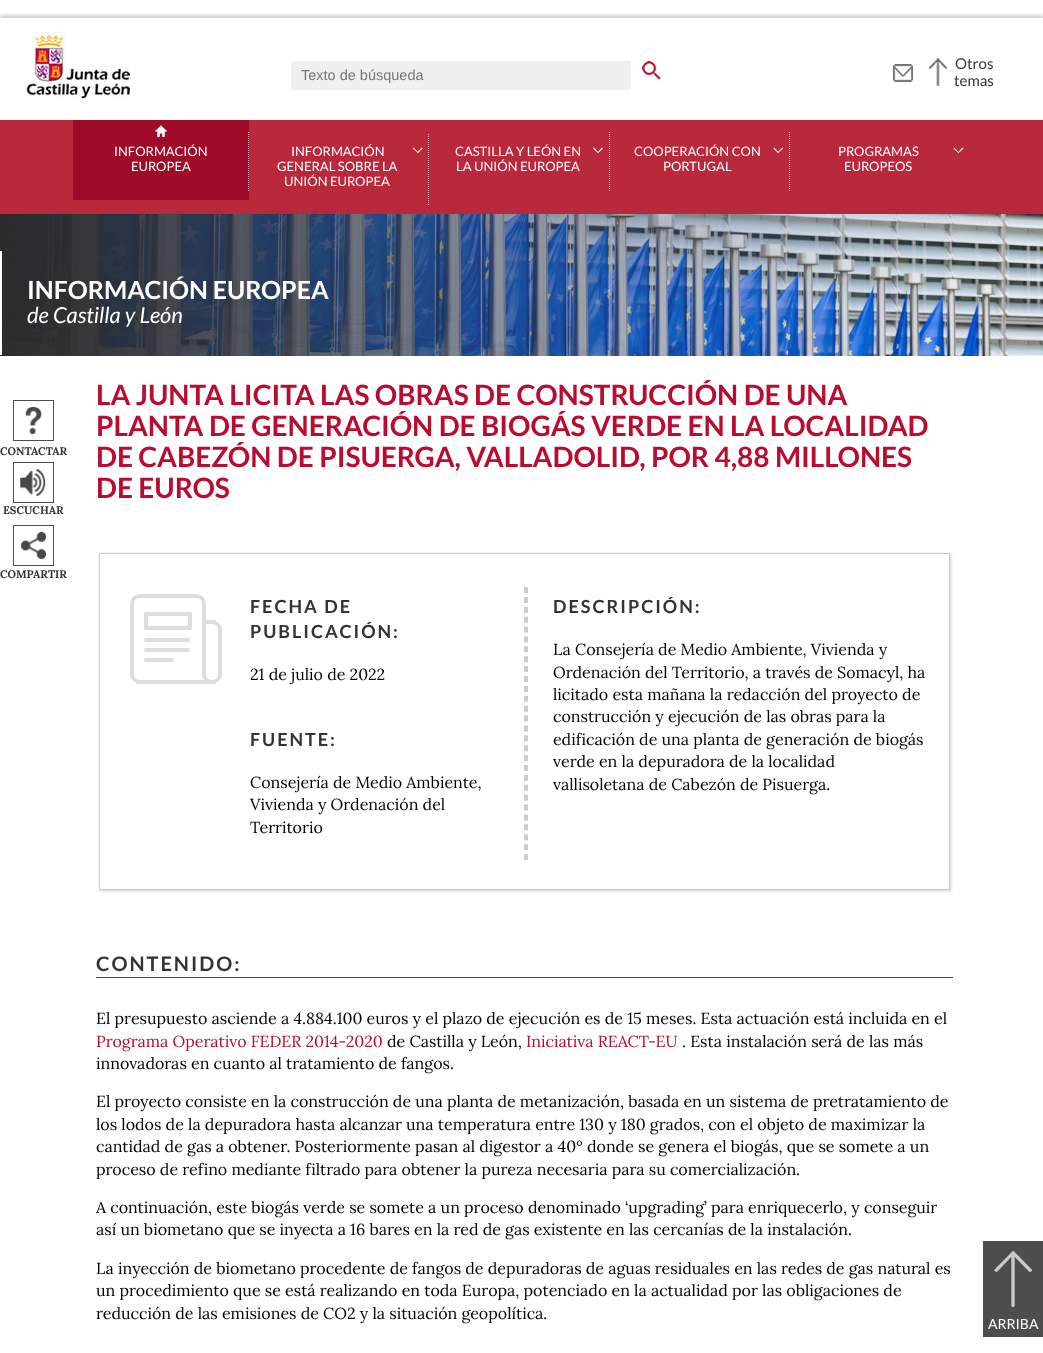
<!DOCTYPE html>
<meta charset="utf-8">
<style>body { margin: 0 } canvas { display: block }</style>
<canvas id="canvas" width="1043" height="1353"></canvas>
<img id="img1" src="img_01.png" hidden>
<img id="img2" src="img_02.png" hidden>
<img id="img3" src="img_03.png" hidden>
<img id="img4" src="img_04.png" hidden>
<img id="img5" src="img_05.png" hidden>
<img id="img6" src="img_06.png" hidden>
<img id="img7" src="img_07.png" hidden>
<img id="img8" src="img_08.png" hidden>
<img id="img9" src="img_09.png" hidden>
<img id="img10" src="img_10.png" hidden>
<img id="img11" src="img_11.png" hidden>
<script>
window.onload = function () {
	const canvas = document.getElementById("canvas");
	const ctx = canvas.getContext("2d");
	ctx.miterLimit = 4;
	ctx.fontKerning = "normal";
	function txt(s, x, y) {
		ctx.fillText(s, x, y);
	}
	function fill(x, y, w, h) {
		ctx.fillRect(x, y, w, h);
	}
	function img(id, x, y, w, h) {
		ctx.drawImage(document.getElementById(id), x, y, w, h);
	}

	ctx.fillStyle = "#FFFFFF";
	fill(0, 0, 1043, 1353);
	ctx.save();
	ctx.beginPath();
	ctx.rect(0, 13, 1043, 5);
	ctx.clip();
	ctx.fillStyle = "rgba(75, 75, 75, 0.25)";
	ctx.filter = "blur(1.5px)";
	ctx.beginPath();
	ctx.rect(0, 15, 1043, 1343);
	ctx.fill();
	ctx.filter = "none";
	ctx.restore();
	img("img1", 26, 34, 104, 65);
	ctx.fillStyle = "#F0F0F0";
	fill(291, 61, 340, 29);
	img("img2", 642, 61, 19, 19);
	img("img3", 893, 64, 20, 18);
	img("img4", 929, 58, 18, 28);
	ctx.fillStyle = "#BA283B";
	fill(0, 120, 1043, 94);
	ctx.fillStyle = "#9F0B28";
	fill(73, 120, 176, 80);
	img("img5", 155, 125, 12, 12);
	ctx.beginPath();
	ctx.moveTo(248.5, 132);
	ctx.lineTo(248.5, 192);
	ctx.strokeStyle = "#D99DA9";
	ctx.setLineDash([1, 1]);
	ctx.stroke();
	ctx.fillStyle = "#FFFFFF";
	ctx.beginPath();
	ctx.moveTo(422, 147.5);
	ctx.lineTo(422.5, 148.5);
	ctx.lineTo(418, 153);
	ctx.lineTo(417, 152.5);
	ctx.closePath();
	ctx.fill();
	ctx.beginPath();
	ctx.moveTo(413.5, 147.5);
	ctx.lineTo(418.5, 152.5);
	ctx.lineTo(418, 153);
	ctx.lineTo(413, 148.5);
	ctx.closePath();
	ctx.fill();
	ctx.beginPath();
	ctx.moveTo(428.5, 134);
	ctx.lineTo(428.5, 205);
	ctx.strokeStyle = "#E3A9B1";
	ctx.stroke();
	ctx.beginPath();
	ctx.moveTo(602, 147.5);
	ctx.lineTo(603, 148.5);
	ctx.lineTo(598, 153);
	ctx.lineTo(597.5, 152.5);
	ctx.closePath();
	ctx.fill();
	ctx.beginPath();
	ctx.moveTo(594, 147.5);
	ctx.lineTo(598.5, 152.5);
	ctx.lineTo(598, 153);
	ctx.lineTo(593, 148.5);
	ctx.closePath();
	ctx.fill();
	ctx.beginPath();
	ctx.moveTo(609.5, 132);
	ctx.lineTo(609.5, 192);
	ctx.stroke();
	ctx.beginPath();
	ctx.moveTo(782.5, 147.5);
	ctx.lineTo(783, 148.5);
	ctx.lineTo(778, 153);
	ctx.lineTo(777.5, 152.5);
	ctx.closePath();
	ctx.fill();
	ctx.beginPath();
	ctx.moveTo(774, 147.5);
	ctx.lineTo(779, 152.5);
	ctx.lineTo(778, 153);
	ctx.lineTo(773.5, 148.5);
	ctx.closePath();
	ctx.fill();
	ctx.beginPath();
	ctx.moveTo(789.5, 132);
	ctx.lineTo(789.5, 192);
	ctx.stroke();
	ctx.beginPath();
	ctx.moveTo(962.5, 147.5);
	ctx.lineTo(963.5, 148.5);
	ctx.lineTo(958.5, 153);
	ctx.lineTo(958, 152.5);
	ctx.closePath();
	ctx.fill();
	ctx.beginPath();
	ctx.moveTo(954, 147.5);
	ctx.lineTo(959, 152.5);
	ctx.lineTo(958.5, 153);
	ctx.lineTo(953.5, 148.5);
	ctx.closePath();
	ctx.fill();
	img("img6", 0, 214, 1043, 142);
	fill(0, 251, 2, 104);
	ctx.strokeStyle = "#4D4D4D";
	ctx.setLineDash([]);
	ctx.strokeRect(13.5, 400.5, 40, 40);
	img("img7", 25, 407, 17, 28);
	ctx.strokeRect(13.5, 462.5, 40, 40);
	img("img8", 20, 469, 26, 28);
	ctx.strokeRect(13.5, 525.5, 40, 40);
	img("img9", 21, 532, 26, 28);
	ctx.save();
	ctx.beginPath();
	ctx.moveTo(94, 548);
	ctx.lineTo(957, 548);
	ctx.lineTo(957, 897);
	ctx.lineTo(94, 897);
	ctx.closePath();
	ctx.moveTo(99, 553);
	ctx.lineTo(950, 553);
	ctx.lineTo(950, 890);
	ctx.lineTo(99, 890);
	ctx.closePath();
	ctx.clip("evenodd");
	ctx.fillStyle = "#CCCCCC";
	ctx.filter = "blur(1.5px)";
	ctx.beginPath();
	ctx.rect(100, 554, 851, 337);
	ctx.fill();
	ctx.filter = "none";
	ctx.restore();
	img("img10", 130, 594, 92, 90);
	ctx.strokeStyle = "#CCCCCC";
	ctx.strokeRect(99.5, 553.5, 850, 336);
	ctx.beginPath();
	ctx.moveTo(527, 587);
	ctx.lineTo(527, 860);
	ctx.lineWidth = 2;
	ctx.setLineDash([6, 3.89]);
	ctx.stroke();
	ctx.fillStyle = "#CCCCCC";
	fill(524, 858, 4, 2);
	ctx.beginPath();
	ctx.moveTo(525, 587);
	ctx.lineTo(525, 860);
	ctx.stroke();
	ctx.fillStyle = "#BA0C2F";
	fill(96, 977, 857, 1);
	ctx.fillStyle = "#4D4D4D";
	fill(983, 1241, 60, 96);
	img("img11", 994, 1251, 38, 56);
	ctx.font = "14.5px Liberation Sans";
	ctx.fillStyle = "#757575";
	txt("Texto de búsqueda", 301, 80);
	ctx.font = "15px Lato";
	ctx.fillStyle = "#333333";
	txt("Otros", 955, 69);
	txt("temas", 954, 86);
	ctx.font = "13px Lato";
	ctx.fillStyle = "#FFFFFF";
	txt("INFORMACIÓN", 114, 156);
	txt("EUROPEA", 131, 171);
	txt("INFORMACIÓN", 291, 156);
	txt("GENERAL SOBRE LA", 277, 171);
	txt("UNIÓN EUROPEA", 284, 186);
	txt("CASTILLA Y LEÓN EN", 455, 156);
	txt("LA UNIÓN EUROPEA", 456, 171);
	txt("COOPERACIÓN CON", 634, 156);
	txt("PORTUGAL", 663, 171);
	txt("PROGRAMAS", 838, 156);
	txt("EUROPEOS", 844, 171);
	ctx.font = "bold 25px Lato";
	txt("INFORMACIÓN EUROPEA", 27, 299);
	ctx.font = "italic 22px Lato";
	txt("de Castilla y León", 27, 323);
	ctx.font = "bold 11px Lora";
	ctx.fillStyle = "#333333";
	txt("CONTACTAR", 0, 455);
	txt("ESCUCHAR", 3, 514);
	txt("COMPARTIR", 0, 578);
	ctx.font = "bold 28px Lato";
	ctx.fillStyle = "#BA0C2F";
	txt("LA JUNTA LICITA LAS OBRAS DE CONSTRUCCIÓN DE UNA", 96, 405);
	txt("PLANTA DE GENERACIÓN DE BIOGÁS VERDE EN LA LOCALIDAD", 96, 436);
	txt("DE CABEZÓN DE PISUERGA, VALLADOLID, POR 4,88 MILLONES", 96, 467);
	txt("DE EUROS", 96, 498);
	ctx.letterSpacing = "2px";
	ctx.font = "bold 18px Lato";
	ctx.fillStyle = "#333333";
	txt("FECHA DE", 250, 613);
	txt("PUBLICACIÓN:", 250, 638);
	ctx.letterSpacing = "0px";
	ctx.font = "16px Lora";
	ctx.fillStyle = "#000000";
	txt("21 de julio de 2022", 250, 680);
	ctx.letterSpacing = "2px";
	ctx.font = "bold 18px Lato";
	ctx.fillStyle = "#333333";
	txt("FUENTE:", 250, 746);
	ctx.letterSpacing = "0px";
	ctx.font = "16px Lora";
	ctx.fillStyle = "#000000";
	txt("Consejería de Medio Ambiente,", 250, 788);
	txt("Vivienda y Ordenación del", 250, 810);
	txt("Territorio", 250, 833);
	ctx.letterSpacing = "2px";
	ctx.font = "bold 18px Lato";
	ctx.fillStyle = "#333333";
	txt("DESCRIPCIÓN:", 553, 613);
	ctx.letterSpacing = "0px";
	ctx.font = "16px Lora";
	ctx.fillStyle = "#000000";
	txt("La Consejería de Medio Ambiente, Vivienda y", 553, 655);
	txt("Ordenación del Territorio, a través de Somacyl, ha", 553, 678);
	txt("licitado esta mañana la redacción del proyecto de", 553, 700);
	txt("construcción y ejecución de las obras para la", 553, 722);
	txt("edificación de una planta de generación de biogás", 553, 745);
	txt("verde en la depuradora de la localidad", 553, 767);
	txt("vallisoletana de Cabezón de Pisuerga.", 553, 790);
	ctx.letterSpacing = "2px";
	ctx.font = "bold 20px Lato";
	ctx.fillStyle = "#333333";
	txt("CONTENIDO:", 96, 971);
	ctx.letterSpacing = "0px";
	ctx.font = "16px Lora";
	ctx.fillStyle = "#000000";
	txt("El presupuesto asciende a 4.884.100 euros y el plazo de ejecución es de 15 meses. Esta actuación está incluida en el", 96, 1024);
	ctx.fillStyle = "#BA0C2F";
	txt("Programa Operativo FEDER 2014-2020", 96, 1047);
	ctx.fillStyle = "#000000";
	txt("de Castilla y León,", 387, 1047);
	ctx.fillStyle = "#BA0C2F";
	txt("Iniciativa REACT-EU", 526, 1047);
	ctx.fillStyle = "#000000";
	txt(". Esta instalación será de las más", 682, 1047);
	txt("innovadoras en cuanto al tratamiento de fangos.", 96, 1069);
	txt("El proyecto consiste en la construcción de una planta de metanización, basada en un sistema de pretratamiento de", 96, 1107);
	txt("los lodos de la depuradora hasta alcanzar una temperatura entre 130 y 180 grados, con el objeto de maximizar la", 96, 1130);
	txt("cantidad de gas a obtener. Posteriormente pasan al digestor a 40º donde se genera el biogás, que se somete a un", 96, 1152);
	txt("proceso de refino mediante filtrado para obtener la pureza necesaria para su comercialización.", 96, 1175);
	txt("A continuación, este biogás verde se somete a un proceso denominado ‘upgrading’ para enriquecerlo, y conseguir", 96, 1213);
	txt("así un biometano que se inyecta a 16 bares en la red de gas existente en las cercanías de la instalación.", 96, 1235);
	txt("La inyección de biometano procedente de fangos de depuradoras de aguas residuales en las redes de gas natural es", 96, 1274);
	txt("un procedimiento que se está realizando en toda Europa, potenciado en la actualidad por las obligaciones de", 96, 1296);
	txt("reducción de las emisiones de CO2 y la situación geopolítica.", 96, 1319);
	ctx.font = "14px Lato";
	ctx.fillStyle = "#FFFFFF";
	txt("ARRIBA", 988, 1329);
};
</script>
